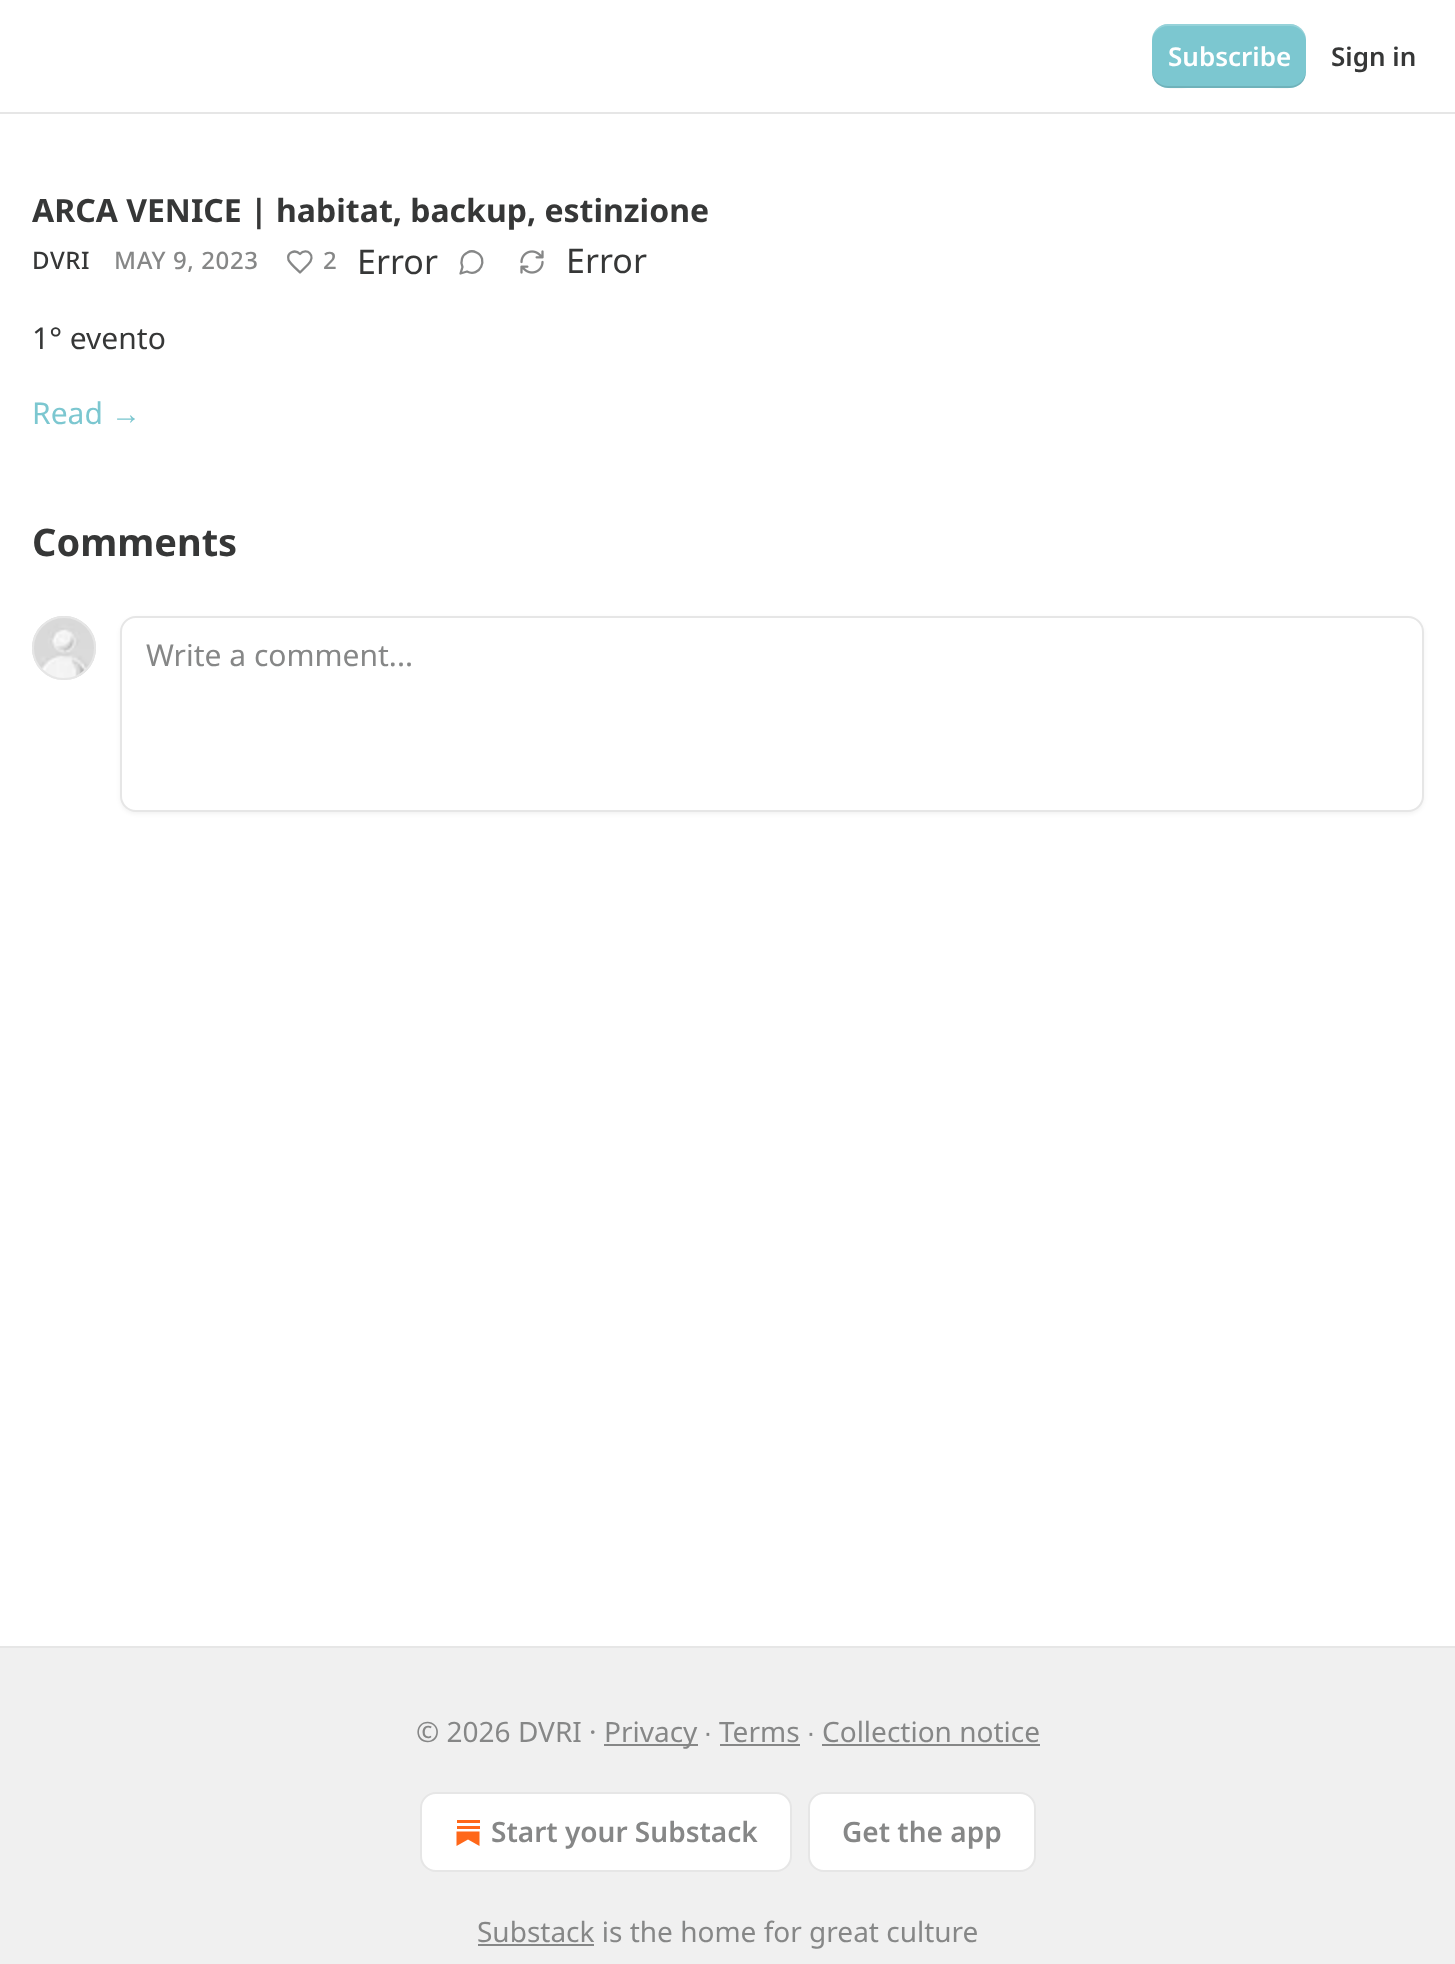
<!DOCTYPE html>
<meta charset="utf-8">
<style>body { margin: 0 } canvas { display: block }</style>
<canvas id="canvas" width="1455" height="1964"></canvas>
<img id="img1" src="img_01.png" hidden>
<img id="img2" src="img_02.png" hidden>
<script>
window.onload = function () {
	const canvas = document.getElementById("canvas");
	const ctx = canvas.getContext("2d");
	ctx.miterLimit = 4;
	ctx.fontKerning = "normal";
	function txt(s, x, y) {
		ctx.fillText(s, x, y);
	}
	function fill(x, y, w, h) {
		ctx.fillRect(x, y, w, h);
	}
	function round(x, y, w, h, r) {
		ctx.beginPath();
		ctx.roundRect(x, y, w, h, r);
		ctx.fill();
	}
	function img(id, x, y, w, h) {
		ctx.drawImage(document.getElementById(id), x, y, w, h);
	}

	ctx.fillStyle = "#FFFFFF";
	fill(0, 0, 1455, 1964);
	ctx.fillStyle = "#E6E6E6";
	fill(0, 112, 1455, 2);
	ctx.fillStyle = "#7CC7D0";
	round(1152, 24, 154, 64, 16);
	ctx.fillStyle = "rgba(0, 0, 0, 0.1)";
	ctx.beginPath();
	ctx.moveTo(1152, 70);
	ctx.bezierCurveTo(1152, 92, 1172, 88, 1188, 88);
	ctx.lineTo(1270, 88);
	ctx.bezierCurveTo(1286, 88, 1306, 92, 1306, 70);
	ctx.bezierCurveTo(1306, 79, 1299, 86, 1290, 86);
	ctx.lineTo(1168, 86);
	ctx.bezierCurveTo(1159, 86, 1152, 79, 1152, 70);
	ctx.closePath();
	ctx.fill();
	ctx.fillStyle = "rgba(255, 255, 255, 0.2)";
	ctx.beginPath();
	ctx.moveTo(1168, 26);
	ctx.lineTo(1290, 26);
	ctx.bezierCurveTo(1299, 26, 1306, 33, 1306, 42);
	ctx.bezierCurveTo(1306, 20, 1286, 24, 1270, 24);
	ctx.lineTo(1188, 24);
	ctx.bezierCurveTo(1172, 24, 1152, 20, 1152, 42);
	ctx.bezierCurveTo(1152, 33, 1159, 26, 1168, 26);
	ctx.closePath();
	ctx.fill();
	ctx.beginPath();
	ctx.moveTo(308, 264.5);
	ctx.bezierCurveTo(317, 255.5, 306.5, 247, 300, 254);
	ctx.bezierCurveTo(295, 249, 286.5, 252.5, 288.5, 260);
	ctx.bezierCurveTo(290, 263.5, 297.5, 270, 300, 272.5);
	ctx.closePath();
	ctx.strokeStyle = "#868787";
	ctx.lineWidth = 2.3;
	ctx.lineCap = "round";
	ctx.lineJoin = "round";
	ctx.stroke();
	ctx.beginPath();
	ctx.moveTo(467, 271.5);
	ctx.bezierCurveTo(479.5, 278, 489, 258.5, 476.5, 252.5);
	ctx.bezierCurveTo(473.5, 251, 470, 251, 467.5, 252.5);
	ctx.bezierCurveTo(462, 255, 460, 261.5, 462.5, 267);
	ctx.lineTo(460.5, 273.5);
	ctx.closePath();
	ctx.stroke();
	img("img1", 520, 250, 24, 24);
	ctx.beginPath();
	ctx.arc(64, 648, 31, 0, Math.PI * 2);
	ctx.strokeStyle = "#E6E6E6";
	ctx.lineWidth = 2;
	ctx.stroke();
	img("img2", 32, 616, 64, 63);
	ctx.beginPath();
	ctx.arc(64, 648, 31, 0, Math.PI * 2);
	ctx.stroke();
	ctx.fillStyle = "rgba(0, 0, 0, 0.05)";
	ctx.filter = "blur(2px)";
	ctx.beginPath();
	ctx.roundRect(120, 618, 1304, 196, 16);
	ctx.fill();
	ctx.filter = "none";
	ctx.fillStyle = "#FFFFFF";
	ctx.beginPath();
	ctx.roundRect(121, 617, 1302, 194, 15);
	ctx.fill();
	ctx.lineJoin = "miter";
	ctx.stroke();
	ctx.fillStyle = "#F0F0F0";
	fill(0, 1648, 1455, 316);
	ctx.fillStyle = "#E6E6E6";
	fill(0, 1646, 1455, 2);
	ctx.fillStyle = "#868787";
	fill(604, 1744, 94, 2);
	fill(720, 1744, 80, 2);
	fill(822, 1744, 218, 2);
	ctx.fillStyle = "#FFFFFF";
	ctx.beginPath();
	ctx.roundRect(421, 1793, 370, 78, 15);
	ctx.fill();
	ctx.stroke();
	ctx.fillStyle = "#FF6719";
	fill(457, 1826, 23, 3);
	ctx.beginPath();
	ctx.moveTo(456.5, 1831.5);
	ctx.lineTo(456.5, 1846);
	ctx.lineTo(468, 1839.5);
	ctx.lineTo(479.5, 1846);
	ctx.lineTo(479.5, 1831.5);
	ctx.closePath();
	ctx.fill();
	fill(457, 1820, 23, 3);
	ctx.fillStyle = "#FFFFFF";
	ctx.beginPath();
	ctx.roundRect(809, 1793, 226, 78, 15);
	ctx.fill();
	ctx.stroke();
	ctx.fillStyle = "#868787";
	fill(478, 1944, 116, 2);
	ctx.font = "600 26px Noto Sans";
	ctx.fillStyle = "#FFFFFF";
	txt("Subscribe", 1168, 66);
	ctx.fillStyle = "#363737";
	txt("Sign in", 1331, 66);
	ctx.font = "bold 32px Noto Sans";
	txt("ARCA VENICE | habitat, backup, estinzione", 32, 222);
	ctx.letterSpacing = "0.6px";
	ctx.font = "500 24px Noto Sans";
	txt("DVRI", 32, 269);
	ctx.fillStyle = "#868787";
	txt("MAY 9, 2023", 114, 269);
	txt("2", 323, 269);
	ctx.letterSpacing = "0px";
	ctx.font = "34px Noto Sans";
	ctx.fillStyle = "#363737";
	txt("Error", 357, 274);
	txt("Error", 566, 273);
	ctx.font = "30px Noto Sans";
	txt("1° evento", 32, 349);
	ctx.fillStyle = "#7CC7D0";
	txt("Read", 32, 424);
	ctx.font = "30px Liberation Sans";
	txt("→", 111, 424);
	ctx.font = "bold 38px Noto Sans";
	ctx.fillStyle = "#363737";
	txt("Comments", 32, 556);
	ctx.font = "30px Noto Sans";
	ctx.fillStyle = "#868787";
	txt("Write a comment...", 146, 666);
	ctx.font = "28px Noto Sans";
	txt("© 2026 DVRI ·", 416, 1742);
	txt("Privacy", 604, 1742);
	ctx.font = "28px Liberation Sans";
	txt("∙", 704, 1742);
	ctx.font = "28px Noto Sans";
	txt("Terms", 719, 1742);
	ctx.font = "28px Liberation Sans";
	txt("∙", 807, 1742);
	ctx.font = "28px Noto Sans";
	txt("Collection notice", 822, 1742);
	ctx.font = "600 28px Noto Sans";
	txt("Start your Substack", 491, 1842);
	txt("Get the app", 842, 1842);
	ctx.font = "28px Noto Sans";
	txt("Substack is the home for great culture", 477, 1942);
};
</script>
